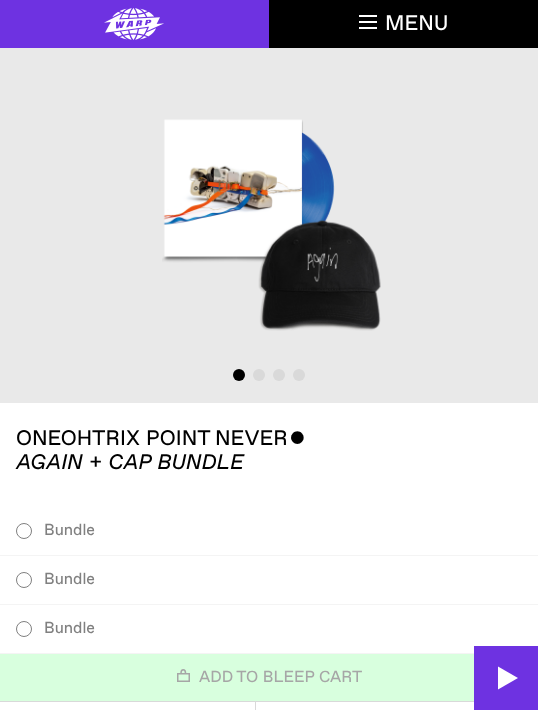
<!DOCTYPE html>
<meta charset="utf-8">
<style>body { margin: 0 } canvas { display: block }</style>
<canvas id="canvas" width="538" height="710"></canvas>
<img id="img1" src="img_01.png" hidden>
<img id="img2" src="img_02.png" hidden>
<script>
window.onload = function () {
	const canvas = document.getElementById("canvas");
	const ctx = canvas.getContext("2d");
	ctx.miterLimit = 4;
	ctx.fontKerning = "normal";
	function txt(s, x, y) {
		ctx.fillText(s, x, y);
	}
	function fill(x, y, w, h) {
		ctx.fillRect(x, y, w, h);
	}
	function img(id, x, y, w, h) {
		ctx.drawImage(document.getElementById(id), x, y, w, h);
	}

	ctx.fillStyle = "#FFFFFF";
	fill(0, 0, 538, 710);
	ctx.fillStyle = "#000000";
	fill(269, 0, 269, 48);
	ctx.fillStyle = "#6E32E1";
	fill(0, 0, 269, 48);
	img("img1", 104, 8, 60, 32);
	ctx.fillStyle = "#FFFFFF";
	fill(359, 15, 18, 2);
	fill(359, 21, 18, 2);
	fill(359, 27, 18, 2);
	ctx.fillStyle = "#E9E9E9";
	fill(0, 48, 538, 355);
	img("img2", 162, 119, 219, 212);
	ctx.fillStyle = "#000000";
	ctx.beginPath();
	ctx.arc(239, 375, 6, 0, Math.PI * 2);
	ctx.fill();
	ctx.fillStyle = "#D9D9D9";
	ctx.beginPath();
	ctx.arc(259, 375, 6, 0, Math.PI * 2);
	ctx.fill();
	ctx.beginPath();
	ctx.arc(279, 375, 6, 0, Math.PI * 2);
	ctx.fill();
	ctx.beginPath();
	ctx.arc(299, 375, 6, 0, Math.PI * 2);
	ctx.fill();
	ctx.fillStyle = "#F4F4F4";
	fill(0, 555, 538, 1);
	ctx.beginPath();
	ctx.arc(24, 531, 7.5, 0, Math.PI * 2);
	ctx.strokeStyle = "#808080";
	ctx.stroke();
	fill(0, 604, 538, 1);
	ctx.beginPath();
	ctx.arc(24, 580, 7.5, 0, Math.PI * 2);
	ctx.stroke();
	fill(0, 653, 474, 1);
	ctx.beginPath();
	ctx.arc(24, 629, 7.5, 0, Math.PI * 2);
	ctx.stroke();
	ctx.fillStyle = "#D8FFDE";
	fill(0, 654, 474, 47);
	ctx.strokeStyle = "#A6A6A6";
	ctx.lineWidth = 1.5;
	ctx.strokeRect(177.75, 673.75, 11.5, 7.5);
	ctx.beginPath();
	ctx.moveTo(185.5, 673);
	ctx.bezierCurveTo(185.5, 668.5, 181, 668.5, 181, 673);
	ctx.stroke();
	ctx.fillStyle = "#D9D9D9";
	fill(255, 702, 1, 8);
	ctx.strokeStyle = "#D9D9D9";
	ctx.lineWidth = 1;
	ctx.strokeRect(-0.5, 701.5, 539, 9);
	ctx.fillStyle = "#6E32E1";
	fill(474, 646, 64, 64);
	ctx.fillStyle = "#FFFFFF";
	ctx.beginPath();
	ctx.moveTo(518, 678);
	ctx.lineTo(498, 689.5);
	ctx.lineTo(498, 666.5);
	ctx.closePath();
	ctx.fill();
	ctx.font = "21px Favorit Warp";
	txt("MENU", 385, 30);
	ctx.fillStyle = "#000000";
	txt("ONEOHTRIX POINT NEVER", 16, 445);
	txt("ˇ", 290, 445);
	ctx.font = "italic 21px Favorit Warp";
	txt("AGAIN + CAP BUNDLE", 16, 469);
	ctx.font = "16px Favorit Warp";
	ctx.fillStyle = "#808080";
	txt("Bundle", 44, 535);
	txt("Bundle", 44, 584);
	txt("Bundle", 44, 633);
	ctx.fillStyle = "#A6A6A6";
	txt("ADD TO BLEEP CART", 199, 682);
};
</script>
